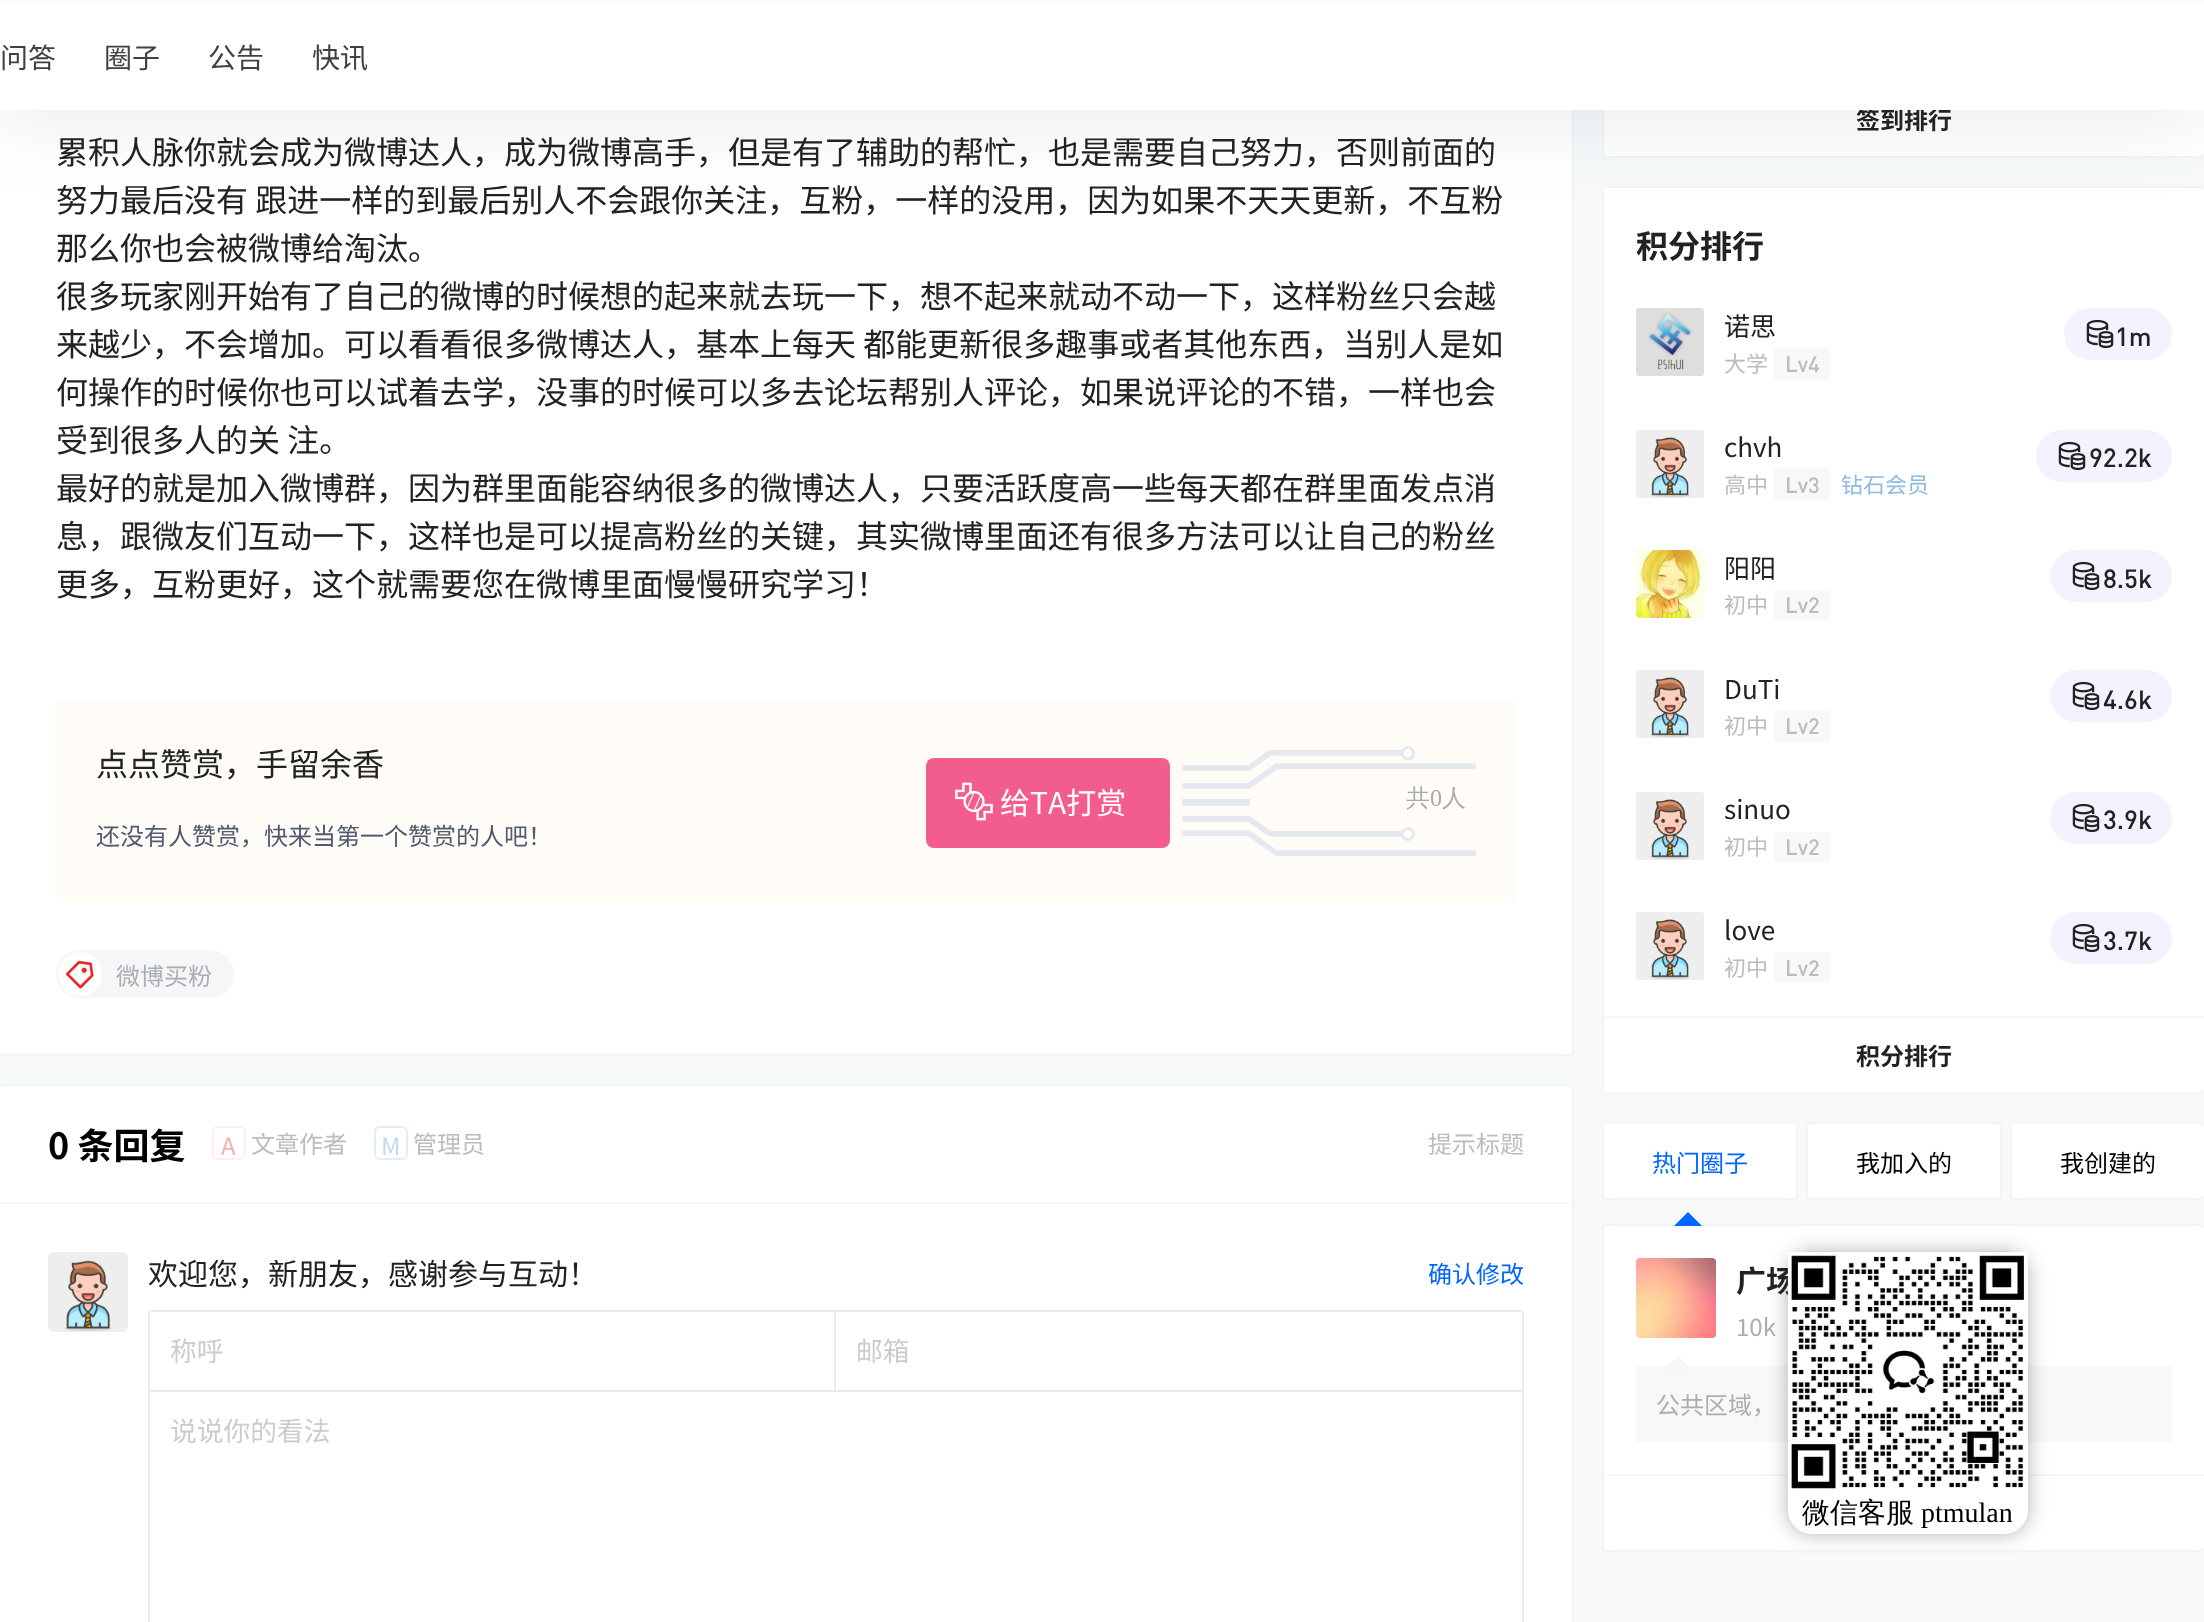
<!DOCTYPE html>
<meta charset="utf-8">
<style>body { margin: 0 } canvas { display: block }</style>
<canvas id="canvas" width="2204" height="1622"></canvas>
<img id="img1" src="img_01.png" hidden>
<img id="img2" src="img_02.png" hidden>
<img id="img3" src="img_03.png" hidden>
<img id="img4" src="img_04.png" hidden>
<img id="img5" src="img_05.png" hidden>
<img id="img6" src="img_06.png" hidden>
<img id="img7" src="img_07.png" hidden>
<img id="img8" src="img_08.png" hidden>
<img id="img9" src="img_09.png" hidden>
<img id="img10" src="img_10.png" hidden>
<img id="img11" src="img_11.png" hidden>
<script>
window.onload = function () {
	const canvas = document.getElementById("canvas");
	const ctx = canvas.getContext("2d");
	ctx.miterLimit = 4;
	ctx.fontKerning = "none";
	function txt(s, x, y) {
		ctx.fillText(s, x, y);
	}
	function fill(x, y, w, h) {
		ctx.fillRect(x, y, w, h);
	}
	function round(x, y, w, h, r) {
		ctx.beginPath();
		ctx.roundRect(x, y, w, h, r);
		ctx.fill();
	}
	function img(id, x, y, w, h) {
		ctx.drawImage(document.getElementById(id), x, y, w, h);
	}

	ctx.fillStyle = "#F7F9FA";
	fill(0, 0, 2204, 1622);
	ctx.fillStyle = "rgba(98, 124, 153, 0.1)";
	ctx.filter = "blur(2px)";
	ctx.beginPath();
	ctx.roundRect(0, -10, 1572, 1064, 4);
	ctx.fill();
	ctx.filter = "none";
	ctx.fillStyle = "#FFFFFF";
	round(0, -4, 1572, 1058, 4);
	ctx.fillStyle = "rgba(98, 124, 153, 0.1)";
	ctx.filter = "blur(2px)";
	ctx.beginPath();
	ctx.roundRect(1604, -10, 600, 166, 4);
	ctx.fill();
	ctx.filter = "none";
	ctx.fillStyle = "#FFFFFF";
	round(1604, -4, 600, 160, 4);
	ctx.fillStyle = "rgba(98, 124, 153, 0.1)";
	ctx.filter = "blur(2px)";
	ctx.beginPath();
	ctx.roundRect(1604, 188, 600, 904, 4);
	ctx.fill();
	ctx.filter = "none";
	ctx.fillStyle = "#FFFFFF";
	round(1604, 188, 600, 904, 4);
	ctx.fillStyle = "rgba(17, 58, 93, 0.1)";
	ctx.filter = "blur(40px)";
	ctx.beginPath();
	ctx.rect(0, -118, 2204, 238);
	ctx.fill();
	ctx.filter = "none";
	ctx.fillStyle = "#FCFCFC";
	fill(0, 0, 2204, 2);
	ctx.fillStyle = "#FFFCF7";
	round(56, 700, 1460, 202, 6);
	ctx.fillStyle = "#F25D8E";
	round(926, 758, 244, 90, 8);
	img("img1", 955, 782, 38, 39);
	img("img2", 1182, 746, 294, 110);
	ctx.fillStyle = "#F5F6F7";
	ctx.beginPath();
	ctx.roundRect(57, 951, 176, 46, 23);
	ctx.fill();
	ctx.strokeStyle = "#F5F6F7";
	ctx.lineWidth = 2;
	ctx.stroke();
	ctx.fillStyle = "#FFFFFF";
	ctx.beginPath();
	ctx.arc(80, 974, 22, 0, Math.PI * 2);
	ctx.fill();
	img("img3", 65, 960, 29, 29);
	ctx.fillStyle = "rgba(98, 124, 153, 0.1)";
	ctx.filter = "blur(2px)";
	ctx.beginPath();
	ctx.roundRect(0, 1086, 1572, 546, 4);
	ctx.fill();
	ctx.filter = "none";
	ctx.fillStyle = "#FFFFFF";
	round(0, 1086, 1572, 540, 4);
	ctx.fillStyle = "#F5F6F7";
	fill(0, 1202, 1572, 2);
	ctx.beginPath();
	ctx.roundRect(213, 1127, 32, 32, 5);
	ctx.strokeStyle = "#FEEDEE";
	ctx.stroke();
	ctx.beginPath();
	ctx.roundRect(375, 1127, 32, 32, 5);
	ctx.strokeStyle = "#E2EDF9";
	ctx.stroke();
	ctx.fillStyle = "#EEEEEE";
	round(48, 1252, 80, 80, 6);
	img("img4", 64, 1260, 62, 71);
	ctx.fillStyle = "#EBEBEB";
	ctx.beginPath();
	ctx.moveTo(152, 1310);
	ctx.bezierCurveTo(150, 1310, 148, 1312, 148, 1314);
	ctx.lineTo(148, 1392);
	ctx.lineTo(836, 1392);
	ctx.lineTo(836, 1310);
	ctx.closePath();
	ctx.moveTo(150, 1312);
	ctx.lineTo(150, 1390);
	ctx.lineTo(834, 1390);
	ctx.lineTo(834, 1312);
	ctx.closePath();
	ctx.fill("evenodd");
	ctx.save();
	ctx.beginPath();
	ctx.roundRect(148, 1310, 1376, 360, 4);
	ctx.clip();
	fill(836, 1310, 688, 2);
	fill(1522, 1310, 2, 82);
	ctx.restore();
	ctx.beginPath();
	ctx.moveTo(148, 1390);
	ctx.lineTo(148, 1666);
	ctx.bezierCurveTo(148, 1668, 150, 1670, 152, 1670);
	ctx.lineTo(1520, 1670);
	ctx.bezierCurveTo(1522, 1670, 1524, 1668, 1524, 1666);
	ctx.lineTo(1524, 1390);
	ctx.closePath();
	ctx.moveTo(150, 1392);
	ctx.lineTo(150, 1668);
	ctx.lineTo(1522, 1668);
	ctx.lineTo(1522, 1392);
	ctx.closePath();
	ctx.fill("evenodd");
	ctx.fillStyle = "#F9F9F9";
	fill(1636, 308, 68, 68);
	img("img5", 1636, 308, 68, 68);
	ctx.fillStyle = "#F8F8F8";
	round(1774, 348, 56, 32, 4);
	ctx.fillStyle = "#F2F3FF";
	round(2064, 308, 108, 52, 26);
	img("img6", 2086, 319, 28, 30);
	ctx.fillStyle = "#F9F9F9";
	fill(1636, 430, 68, 68);
	ctx.fillStyle = "#EEEEEE";
	round(1636, 430, 68, 68, 4);
	img("img7", 1650, 437, 40, 61);
	ctx.fillStyle = "#F8F8F8";
	round(1774, 468, 56, 32, 4);
	ctx.fillStyle = "#F2F3FF";
	round(2036, 430, 136, 52, 26);
	img("img6", 2058, 441, 28, 30);
	ctx.fillStyle = "#F9F9F9";
	fill(1636, 550, 68, 68);
	img("img8", 1636, 550, 68, 68);
	ctx.fillStyle = "#F8F8F8";
	round(1774, 590, 56, 30, 4);
	ctx.fillStyle = "#F2F3FF";
	round(2050, 550, 122, 52, 26);
	img("img6", 2072, 561, 28, 30);
	ctx.fillStyle = "#F9F9F9";
	fill(1636, 670, 68, 68);
	ctx.fillStyle = "#EEEEEE";
	round(1636, 670, 68, 68, 4);
	img("img9", 1650, 677, 40, 61);
	ctx.fillStyle = "#F8F8F8";
	round(1774, 710, 56, 32, 4);
	ctx.fillStyle = "#F2F3FF";
	round(2050, 670, 122, 52, 26);
	img("img6", 2072, 681, 28, 30);
	ctx.fillStyle = "#F9F9F9";
	fill(1636, 792, 68, 68);
	ctx.fillStyle = "#EEEEEE";
	round(1636, 792, 68, 68, 4);
	img("img9", 1650, 799, 40, 61);
	ctx.fillStyle = "#F8F8F8";
	round(1774, 832, 56, 30, 4);
	ctx.fillStyle = "#F2F3FF";
	round(2050, 792, 122, 52, 26);
	img("img6", 2072, 803, 28, 30);
	ctx.fillStyle = "#F9F9F9";
	fill(1636, 912, 68, 68);
	ctx.fillStyle = "#EEEEEE";
	round(1636, 912, 68, 68, 4);
	img("img9", 1650, 919, 40, 61);
	ctx.fillStyle = "#F8F8F8";
	round(1774, 952, 56, 30, 4);
	ctx.fillStyle = "#F2F3FF";
	round(2050, 912, 122, 52, 26);
	img("img6", 2072, 923, 28, 30);
	ctx.fillStyle = "#F5F6F7";
	fill(1604, 1016, 600, 2);
	ctx.fillStyle = "rgba(98, 124, 153, 0.1)";
	ctx.filter = "blur(2px)";
	ctx.beginPath();
	ctx.roundRect(1604, 1124, 192, 74, 4);
	ctx.fill();
	ctx.filter = "none";
	ctx.fillStyle = "#FFFFFF";
	round(1604, 1124, 192, 74, 4);
	ctx.fillStyle = "rgba(98, 124, 153, 0.1)";
	ctx.filter = "blur(2px)";
	ctx.beginPath();
	ctx.roundRect(1604, 1226, 600, 324, 4);
	ctx.fill();
	ctx.filter = "none";
	ctx.fillStyle = "#0066FF";
	ctx.beginPath();
	ctx.moveTo(1702, 1226);
	ctx.lineTo(1674, 1226);
	ctx.lineTo(1688, 1212);
	ctx.closePath();
	ctx.fill();
	ctx.fillStyle = "rgba(98, 124, 153, 0.1)";
	ctx.filter = "blur(2px)";
	ctx.beginPath();
	ctx.roundRect(1808, 1124, 192, 74, 4);
	ctx.fill();
	ctx.filter = "none";
	ctx.fillStyle = "#FFFFFF";
	round(1808, 1124, 192, 74, 4);
	ctx.fillStyle = "rgba(98, 124, 153, 0.1)";
	ctx.filter = "blur(2px)";
	ctx.beginPath();
	ctx.roundRect(2012, 1124, 192, 74, 4);
	ctx.fill();
	ctx.filter = "none";
	ctx.fillStyle = "#FFFFFF";
	round(2012, 1124, 192, 74, 4);
	round(1604, 1226, 600, 324, 4);
	img("img10", 1636, 1258, 80, 80);
	ctx.fillStyle = "#F8F8F8";
	fill(1636, 1366, 536, 76);
	ctx.fillStyle = "#F5F6F7";
	ctx.beginPath();
	ctx.moveTo(1692, 1370);
	ctx.lineTo(1664, 1370);
	ctx.lineTo(1678, 1356);
	ctx.closePath();
	ctx.fill();
	fill(1604, 1474, 600, 2);
	ctx.fillStyle = "rgba(0, 0, 0, 0.3)";
	ctx.filter = "blur(10px)";
	ctx.beginPath();
	ctx.roundRect(1788, 1252, 240, 282, 24);
	ctx.fill();
	ctx.filter = "none";
	ctx.font = "32px Noto Sans CJK SC";
	ctx.fillStyle = "#222222";
	txt("累积人脉你就会成为微博达人，成为微博高手，但是有了辅助的帮忙，也是需要自己努力，否则前面的", 56, 164);
	txt("努力最后没有 跟进一样的到最后别人不会跟你关注，互粉，一样的没用，因为如果不天天更新，不互粉", 56, 212);
	txt("那么你也会被微博给淘汰。", 56, 260);
	txt("很多玩家刚开始有了自己的微博的时候想的起来就去玩一下，想不起来就动不动一下，这样粉丝只会越", 56, 308);
	txt("来越少，不会增加。可以看看很多微博达人，基本上每天 都能更新很多趣事或者其他东西，当别人是如", 56, 356);
	txt("何操作的时候你也可以试着去学，没事的时候可以多去论坛帮别人评论，如果说评论的不错，一样也会", 56, 404);
	txt("受到很多人的关 注。", 56, 452);
	txt("最好的就是加入微博群，因为群里面能容纳很多的微博达人，只要活跃度高一些每天都在群里面发点消", 56, 500);
	txt("息，跟微友们互动一下，这样也是可以提高粉丝的关键，其实微博里面还有很多方法可以让自己的粉丝", 56, 548);
	txt("更多，互粉更好，这个就需要您在微博里面慢慢研究学习！", 56, 596);
	txt("点点赞赏，手留余香", 96, 776);
	ctx.font = "30px Noto Sans CJK SC";
	ctx.fillStyle = "#FFFFFF";
	txt("给TA打赏", 1000, 814);
	ctx.font = "500 24px WenQuanYi Zen Hei";
	ctx.fillStyle = "#AAAAAA";
	txt("共", 1406, 806);
	ctx.font = "24px Liberation Serif";
	txt("0", 1430, 806);
	ctx.font = "500 24px WenQuanYi Zen Hei";
	txt("人", 1442, 806);
	ctx.font = "24px Noto Sans CJK SC";
	ctx.fillStyle = "#515A6E";
	txt("还没有人赞赏，快来当第一个赞赏的人吧！", 96, 845);
	ctx.fillStyle = "#AAAEB3";
	txt("微博买粉", 116, 985);
	ctx.font = "bold 36px Noto Sans CJK SC";
	ctx.fillStyle = "#000000";
	txt("0 条回复", 48, 1159);
	ctx.font = "24px Noto Sans CJK SC";
	ctx.fillStyle = "#FAADB4";
	txt("A", 221, 1155);
	ctx.fillStyle = "#BCBCBC";
	txt("文章作者", 251, 1153);
	ctx.fillStyle = "#C0D9F1";
	txt("M", 381, 1155);
	ctx.fillStyle = "#BCBCBC";
	txt("管理员", 413, 1153);
	txt("提示标题", 1428, 1153);
	ctx.font = "30px Noto Sans CJK SC";
	ctx.fillStyle = "#222222";
	txt("欢迎您，新朋友，感谢参与互动！", 148, 1285);
	ctx.font = "24px Noto Sans CJK SC";
	ctx.fillStyle = "#0066FF";
	txt("确认修改", 1428, 1283);
	ctx.font = "26.75px Noto Sans CJK SC";
	ctx.fillStyle = "#CCCCCC";
	txt("称呼", 170, 1361);
	txt("邮箱", 856, 1361);
	txt("说说你的看法", 170, 1441);
	ctx.font = "bold 24px Noto Sans CJK SC";
	ctx.fillStyle = "#222222";
	txt("签到排行", 1856, 129);
	ctx.fillStyle = "#FFFFFF";
	fill(0, 2, 2204, 108);
	ctx.font = "28px Noto Sans CJK SC";
	ctx.fillStyle = "#414141";
	txt("快讯", 312, 68);
	txt("公告", 208, 68);
	txt("圈子", 104, 68);
	txt("问答", 0, 68);
	ctx.font = "bold 32px Noto Sans CJK SC";
	ctx.fillStyle = "#222222";
	txt("积分排行", 1636, 258);
	ctx.font = "26px Noto Sans CJK SC";
	txt("诺思", 1724, 336);
	ctx.font = "22px Noto Sans CJK SC";
	ctx.fillStyle = "#BCBCBC";
	txt("大学", 1724, 372);
	ctx.font = "500 22px DIN";
	txt("Lv4", 1785, 372);
	ctx.font = "500 26px DIN";
	ctx.fillStyle = "#222222";
	txt("1m", 2115, 346);
	ctx.font = "26px Noto Sans CJK SC";
	txt("chvh", 1724, 457);
	ctx.font = "22px Noto Sans CJK SC";
	ctx.fillStyle = "#BCBCBC";
	txt("高中", 1724, 493);
	ctx.font = "500 22px DIN";
	txt("Lv3", 1785, 493);
	ctx.font = "22px Noto Sans CJK SC";
	ctx.fillStyle = "#8FB9DF";
	txt("钻石会员", 1841, 493);
	ctx.font = "500 26px DIN";
	ctx.fillStyle = "#222222";
	txt("92.2k", 2089, 467);
	ctx.font = "26px Noto Sans CJK SC";
	txt("阳阳", 1724, 578);
	ctx.font = "22px Noto Sans CJK SC";
	ctx.fillStyle = "#BCBCBC";
	txt("初中", 1724, 613);
	ctx.font = "500 22px DIN";
	txt("Lv2", 1785, 613);
	ctx.font = "500 26px DIN";
	ctx.fillStyle = "#222222";
	txt("8.5k", 2103, 588);
	ctx.font = "26px Noto Sans CJK SC";
	txt("DuTi", 1724, 699);
	ctx.font = "22px Noto Sans CJK SC";
	ctx.fillStyle = "#BCBCBC";
	txt("初中", 1724, 734);
	ctx.font = "500 22px DIN";
	txt("Lv2", 1785, 734);
	ctx.font = "500 26px DIN";
	ctx.fillStyle = "#222222";
	txt("4.6k", 2103, 709);
	ctx.font = "26px Noto Sans CJK SC";
	txt("sinuo", 1724, 819);
	ctx.font = "22px Noto Sans CJK SC";
	ctx.fillStyle = "#BCBCBC";
	txt("初中", 1724, 855);
	ctx.font = "500 22px DIN";
	txt("Lv2", 1785, 855);
	ctx.font = "500 26px DIN";
	ctx.fillStyle = "#222222";
	txt("3.9k", 2103, 829);
	ctx.font = "26px Noto Sans CJK SC";
	txt("love", 1724, 940);
	ctx.font = "22px Noto Sans CJK SC";
	ctx.fillStyle = "#BCBCBC";
	txt("初中", 1724, 976);
	ctx.font = "500 22px DIN";
	txt("Lv2", 1785, 976);
	ctx.font = "500 26px DIN";
	ctx.fillStyle = "#222222";
	txt("3.7k", 2103, 950);
	ctx.font = "bold 24px Noto Sans CJK SC";
	txt("积分排行", 1856, 1065);
	ctx.font = "24px Noto Sans CJK SC";
	ctx.fillStyle = "#0066FF";
	txt("热门圈子", 1652, 1172);
	ctx.fillStyle = "#000000";
	txt("我加入的", 1856, 1172);
	txt("我创建的", 2060, 1172);
	ctx.font = "bold 30px Noto Sans CJK SC";
	ctx.fillStyle = "#222222";
	txt("广场", 1736, 1292);
	ctx.font = "24px Noto Sans CJK SC";
	ctx.fillStyle = "#AAAEB3";
	txt("10k", 1736, 1336);
	txt("公共区域，", 1656, 1414);
	ctx.fillStyle = "#FFFFFF";
	round(1788, 1252, 240, 282, 24);
	img("img11", 1787, 1252, 241, 237);
	ctx.font = "500 28px WenQuanYi Zen Hei";
	ctx.fillStyle = "#000000";
	txt("微信客服", 1802, 1522);
	ctx.font = "28px Liberation Serif";
	txt("ptmulan", 1921, 1522);
};
</script>
